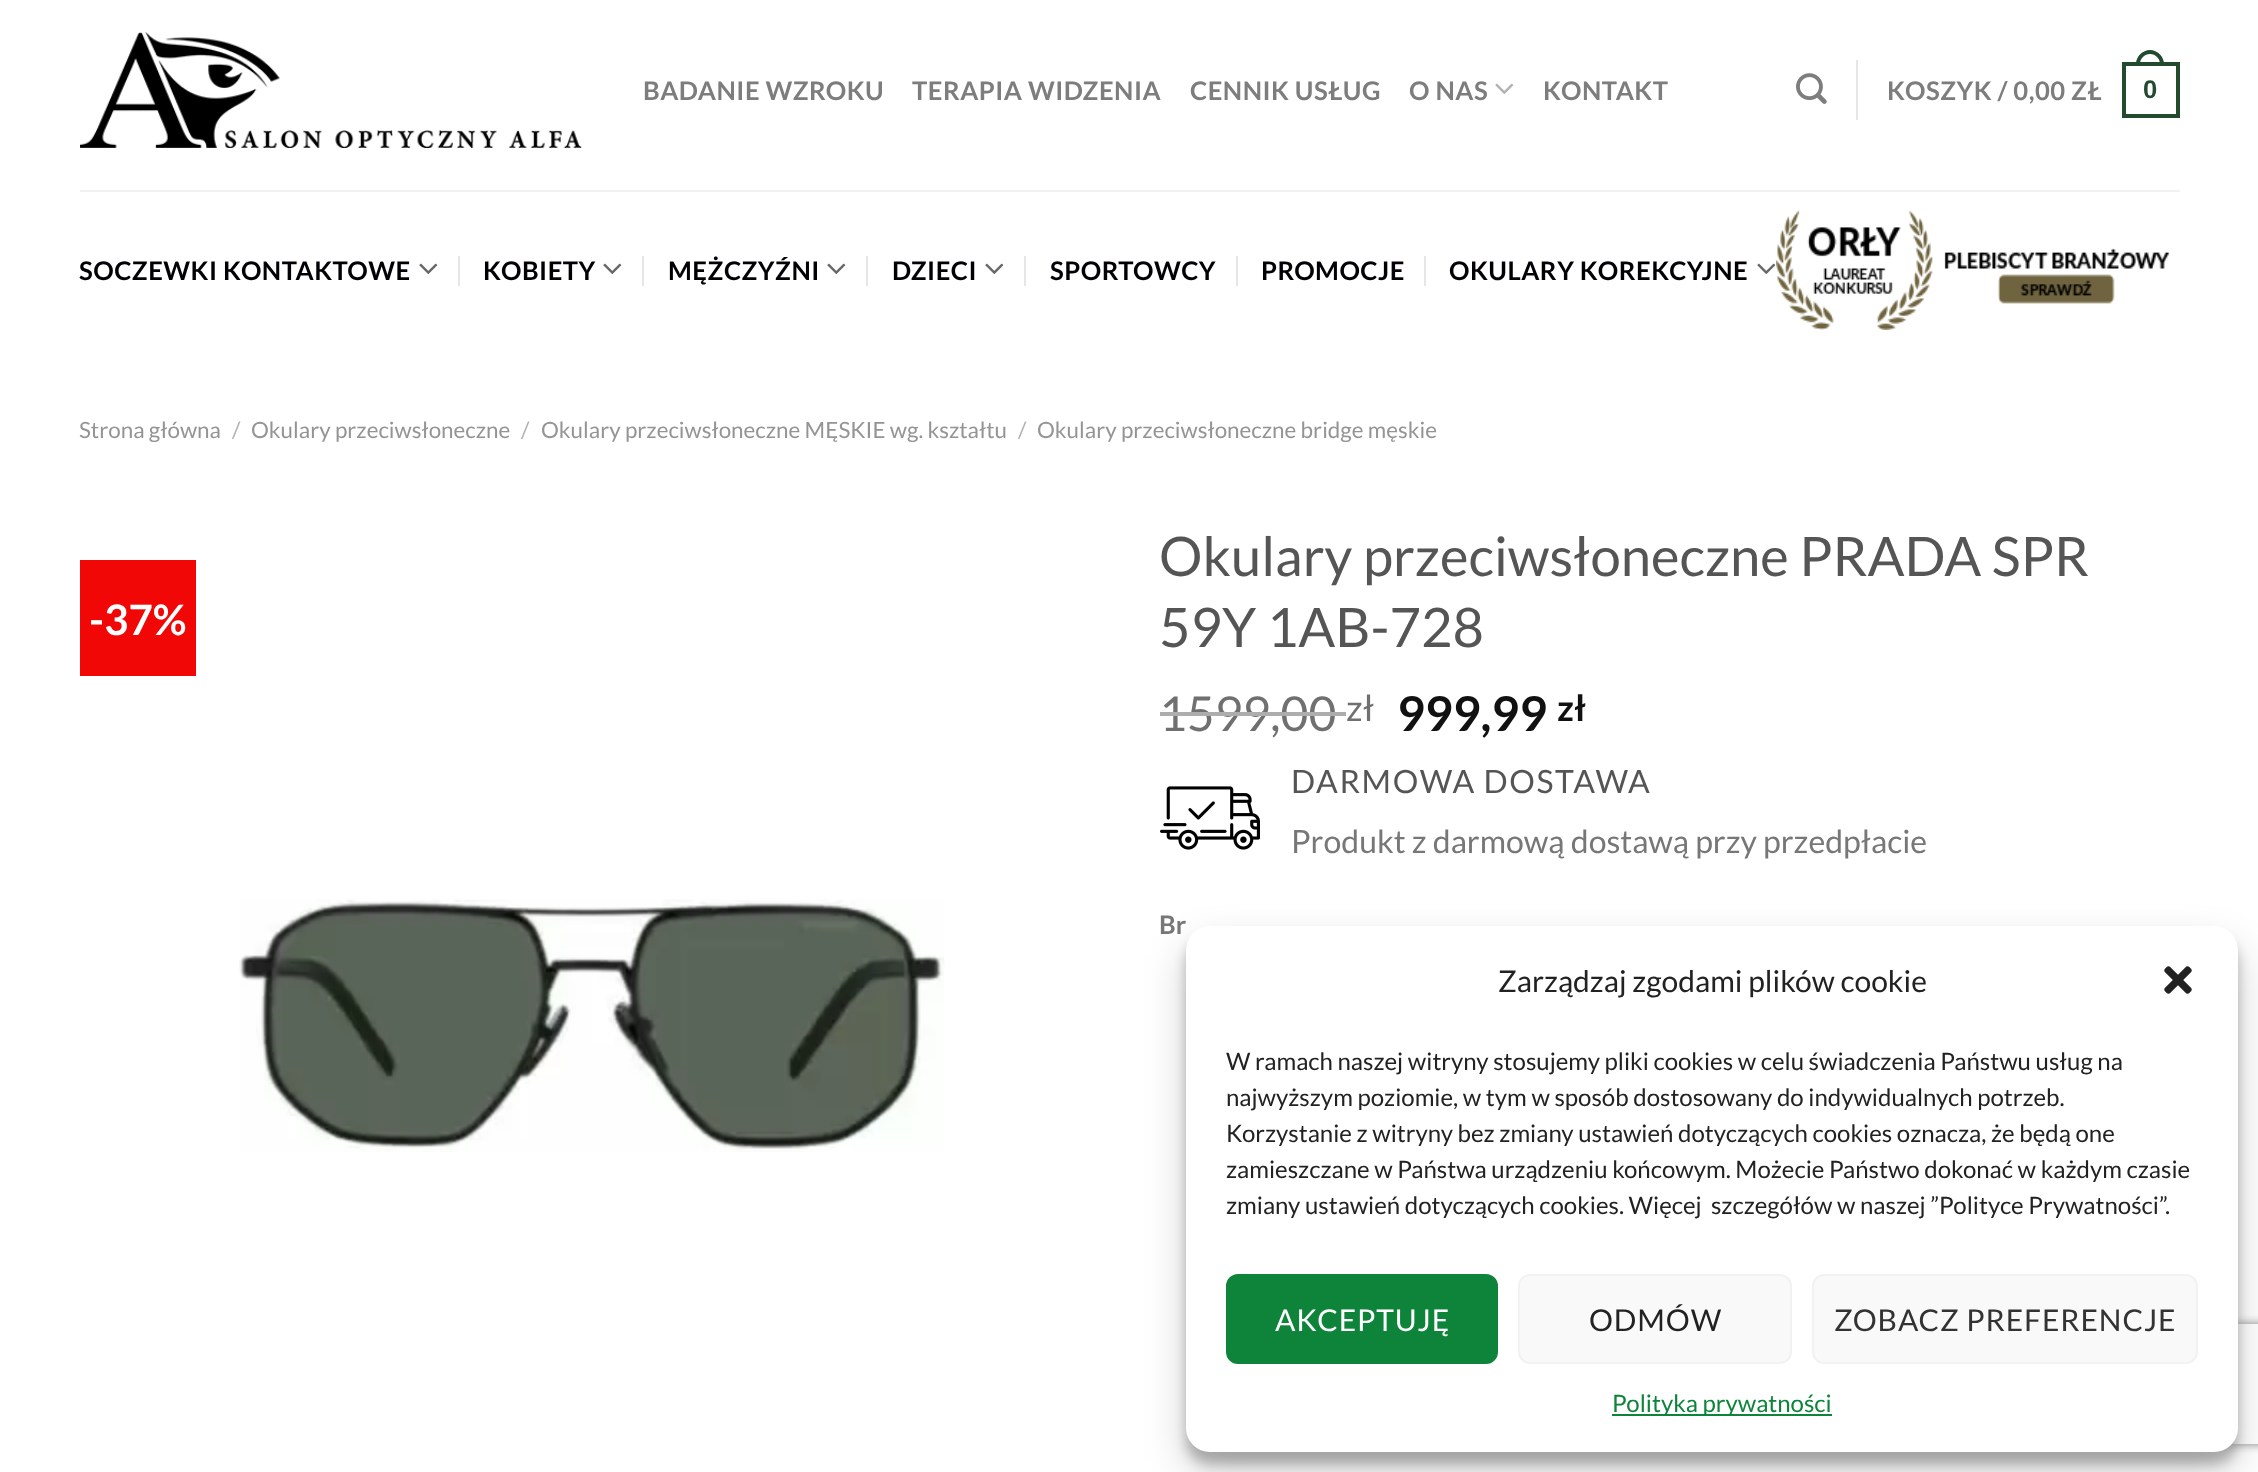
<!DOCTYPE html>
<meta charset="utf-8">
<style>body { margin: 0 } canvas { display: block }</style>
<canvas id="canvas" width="2258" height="1472"></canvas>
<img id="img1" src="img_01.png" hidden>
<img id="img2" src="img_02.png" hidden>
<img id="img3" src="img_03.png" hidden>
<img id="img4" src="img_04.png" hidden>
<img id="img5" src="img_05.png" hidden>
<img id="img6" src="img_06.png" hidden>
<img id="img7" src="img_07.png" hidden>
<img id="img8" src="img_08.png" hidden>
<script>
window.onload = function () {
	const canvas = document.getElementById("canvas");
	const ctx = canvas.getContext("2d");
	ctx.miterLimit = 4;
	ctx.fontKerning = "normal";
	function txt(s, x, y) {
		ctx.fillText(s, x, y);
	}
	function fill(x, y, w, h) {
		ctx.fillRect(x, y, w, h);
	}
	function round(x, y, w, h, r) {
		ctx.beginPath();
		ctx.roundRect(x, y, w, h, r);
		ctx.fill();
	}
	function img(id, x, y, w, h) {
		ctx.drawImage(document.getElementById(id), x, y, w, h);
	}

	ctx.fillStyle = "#FFFFFF";
	fill(0, 0, 2258, 1472);
	img("img1", 80, 32, 502, 116);
	img("img2", 1495, 83, 19, 11);
	img("img3", 1796, 73, 31, 31);
	ctx.fillStyle = "#E6E6E6";
	fill(1856, 60, 2, 60);
	ctx.strokeStyle = "#234A2E";
	ctx.lineWidth = 4;
	ctx.strokeRect(2124, 64, 54, 52);
	ctx.fillStyle = "#234A2E";
	ctx.beginPath();
	ctx.moveTo(2150, 50);
	ctx.bezierCurveTo(2157.5, 50, 2164, 56.5, 2164, 64);
	ctx.lineTo(2164, 66);
	ctx.lineTo(2136, 66);
	ctx.lineTo(2136, 64);
	ctx.bezierCurveTo(2136, 56.5, 2142.5, 50, 2150, 50);
	ctx.closePath();
	ctx.moveTo(2150, 54);
	ctx.bezierCurveTo(2155.5, 54, 2160, 58.5, 2160, 64);
	ctx.lineTo(2160, 66);
	ctx.lineTo(2140, 66);
	ctx.lineTo(2140, 64);
	ctx.bezierCurveTo(2140, 58.5, 2144.5, 54, 2150, 54);
	ctx.closePath();
	ctx.fill("evenodd");
	ctx.fillStyle = "#F1F1F1";
	fill(80, 190, 2100, 2);
	img("img4", 419, 263, 19, 11);
	ctx.fillStyle = "#E6E6E6";
	fill(458, 256, 2, 30);
	img("img4", 603, 263, 19, 11);
	fill(642, 256, 2, 30);
	img("img4", 827, 263, 19, 11);
	fill(866, 256, 2, 30);
	img("img4", 985, 263, 19, 11);
	fill(1024, 256, 2, 30);
	fill(1236, 256, 2, 30);
	fill(1424, 256, 2, 30);
	img("img4", 1757, 263, 19, 11);
	img("img5", 1776, 210, 394, 120);
	ctx.fillStyle = "#F20707";
	fill(80, 560, 116, 116);
	img("img6", 239, 899, 706, 253);
	img("img7", 1160, 786, 100, 64);
	ctx.fillStyle = "rgba(0, 0, 0, 0.23)";
	ctx.filter = "blur(6px)";
	ctx.beginPath();
	ctx.roundRect(1186, 938, 1052, 526, 24);
	ctx.fill();
	ctx.filter = "none";
	ctx.fillStyle = "rgba(0, 0, 0, 0.19)";
	ctx.filter = "blur(20px)";
	ctx.beginPath();
	ctx.roundRect(1186, 946, 1052, 526, 24);
	ctx.fill();
	ctx.filter = "none";
	ctx.save();
	ctx.beginPath();
	ctx.moveTo(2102, 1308);
	ctx.lineTo(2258, 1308);
	ctx.lineTo(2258, 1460);
	ctx.lineTo(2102, 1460);
	ctx.closePath();
	ctx.moveTo(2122, 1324);
	ctx.lineTo(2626, 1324);
	ctx.bezierCurveTo(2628, 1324, 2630, 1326, 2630, 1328);
	ctx.lineTo(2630, 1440);
	ctx.bezierCurveTo(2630, 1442, 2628, 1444, 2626, 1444);
	ctx.lineTo(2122, 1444);
	ctx.bezierCurveTo(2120, 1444, 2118, 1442, 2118, 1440);
	ctx.lineTo(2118, 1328);
	ctx.bezierCurveTo(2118, 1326, 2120, 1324, 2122, 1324);
	ctx.closePath();
	ctx.clip("evenodd");
	ctx.fillStyle = "#808080";
	ctx.filter = "blur(5px)";
	ctx.beginPath();
	ctx.roundRect(2118, 1324, 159, 120, 4);
	ctx.fill();
	ctx.filter = "none";
	ctx.restore();
	ctx.fillStyle = "#FFFFFF";
	round(1186, 926, 1052, 526, 24);
	img("img8", 2164, 966, 28, 28);
	ctx.fillStyle = "#0E843B";
	ctx.beginPath();
	ctx.roundRect(1227, 1275, 270, 88, 11);
	ctx.fill();
	ctx.strokeStyle = "#0E843B";
	ctx.lineWidth = 2;
	ctx.stroke();
	ctx.fillStyle = "#F9F9F9";
	ctx.beginPath();
	ctx.roundRect(1519, 1275, 272, 88, 11);
	ctx.fill();
	ctx.strokeStyle = "#F2F2F2";
	ctx.stroke();
	ctx.beginPath();
	ctx.roundRect(1813, 1275, 384, 88, 11);
	ctx.fill();
	ctx.stroke();
	ctx.fillStyle = "#0E843B";
	fill(1612, 1414, 220, 2);
	ctx.letterSpacing = "0.5px";
	ctx.font = "bold 25.6px Lato";
	ctx.fillStyle = "#7D7D7D";
	txt("BADANIE WZROKU", 643, 100);
	txt("TERAPIA WIDZENIA", 912, 100);
	txt("CENNIK USŁUG", 1190, 100);
	txt("O NAS", 1409, 100);
	txt("KONTAKT", 1543, 100);
	txt("KOSZYK / 0,00 ZŁ", 1887, 100);
	ctx.font = "bold 25.6px Liberation Sans";
	ctx.fillStyle = "#234A2E";
	txt("0", 2143, 98);
	ctx.font = "bold 25.6px Lato";
	ctx.fillStyle = "#020005";
	txt("SOCZEWKI KONTAKTOWE", 79, 280);
	txt("KOBIETY", 483, 280);
	txt("MĘŻCZYŹNI", 668, 280);
	txt("DZIECI", 892, 280);
	txt("SPORTOWCY", 1050, 280);
	txt("PROMOCJE", 1261, 280);
	txt("OKULARY KOREKCYJNE", 1449, 280);
	ctx.letterSpacing = "0px";
	ctx.font = "22.4px Lato";
	ctx.fillStyle = "#949494";
	txt("Strona główna", 79, 438);
	ctx.fillStyle = "#B2B2B2";
	txt("/", 232, 438);
	ctx.fillStyle = "#949494";
	txt("Okulary przeciwsłoneczne", 251, 438);
	ctx.fillStyle = "#B2B2B2";
	txt("/", 521, 438);
	ctx.fillStyle = "#949494";
	txt("Okulary przeciwsłoneczne MĘSKIE wg. kształtu", 541, 438);
	ctx.fillStyle = "#B2B2B2";
	txt("/", 1018, 438);
	ctx.fillStyle = "#949494";
	txt("Okulary przeciwsłoneczne bridge męskie", 1037, 438);
	ctx.font = "bold 42px Lato";
	ctx.fillStyle = "#FFFFFF";
	txt("-37%", 89, 635);
	ctx.font = "54.4px Lato";
	ctx.fillStyle = "#555555";
	txt("Okulary przeciwsłoneczne PRADA SPR", 1159, 576);
	txt("59Y 1AB-728", 1159, 647);
	ctx.font = "48px Lato";
	ctx.fillStyle = "#707070";
	txt("1599,00", 1159, 731);
	ctx.fillStyle = "#ADADAD";
	fill(1160, 712, 186, 4);
	ctx.font = "36px Lato";
	ctx.fillStyle = "#707070";
	txt("zł", 1346, 721);
	ctx.font = "bold 48px Lato";
	ctx.fillStyle = "#111111";
	txt("999,99", 1397, 731);
	ctx.font = "bold 36px Lato";
	txt("zł", 1557, 721);
	ctx.letterSpacing = "1.6px";
	ctx.font = "32px Lato";
	ctx.fillStyle = "#555555";
	txt("DARMOWA DOSTAWA", 1291, 793);
	ctx.letterSpacing = "0px";
	ctx.fillStyle = "#777777";
	txt("Produkt z darmową dostawą przy przedpłacie", 1291, 853);
	ctx.font = "bold 25.6px Lato";
	txt("Br", 1159, 934);
	ctx.font = "30px Lato";
	ctx.fillStyle = "#222222";
	txt("Zarządzaj zgodami plików cookie", 1498, 992);
	ctx.font = "24px Lato";
	txt("W ramach naszej witryny stosujemy pliki cookies w celu świadczenia Państwu usług na", 1226, 1070);
	txt("najwyższym poziomie, w tym w sposób dostosowany do indywidualnych potrzeb.", 1226, 1106);
	txt("Korzystanie z witryny bez zmiany ustawień dotyczących cookies oznacza, że będą one", 1226, 1142);
	txt("zamieszczane w Państwa urządzeniu końcowym. Możecie Państwo dokonać w każdym czasie", 1226, 1178);
	txt("zmiany ustawień dotyczących cookies. Więcej  szczegółów w naszej ”Polityce Prywatności”.", 1226, 1214);
	ctx.letterSpacing = "0.9px";
	ctx.font = "30px Lato";
	ctx.fillStyle = "#FFFFFF";
	txt("AKCEPTUJĘ", 1275, 1331);
	ctx.fillStyle = "#222222";
	txt("ODMÓW", 1589, 1331);
	ctx.fillStyle = "#333333";
	txt("ZOBACZ PREFERENCJE", 1834, 1331);
	ctx.letterSpacing = "0px";
	ctx.font = "24px Lato";
	ctx.fillStyle = "#0E843B";
	txt("Polityka prywatności", 1612, 1412);
};
</script>
